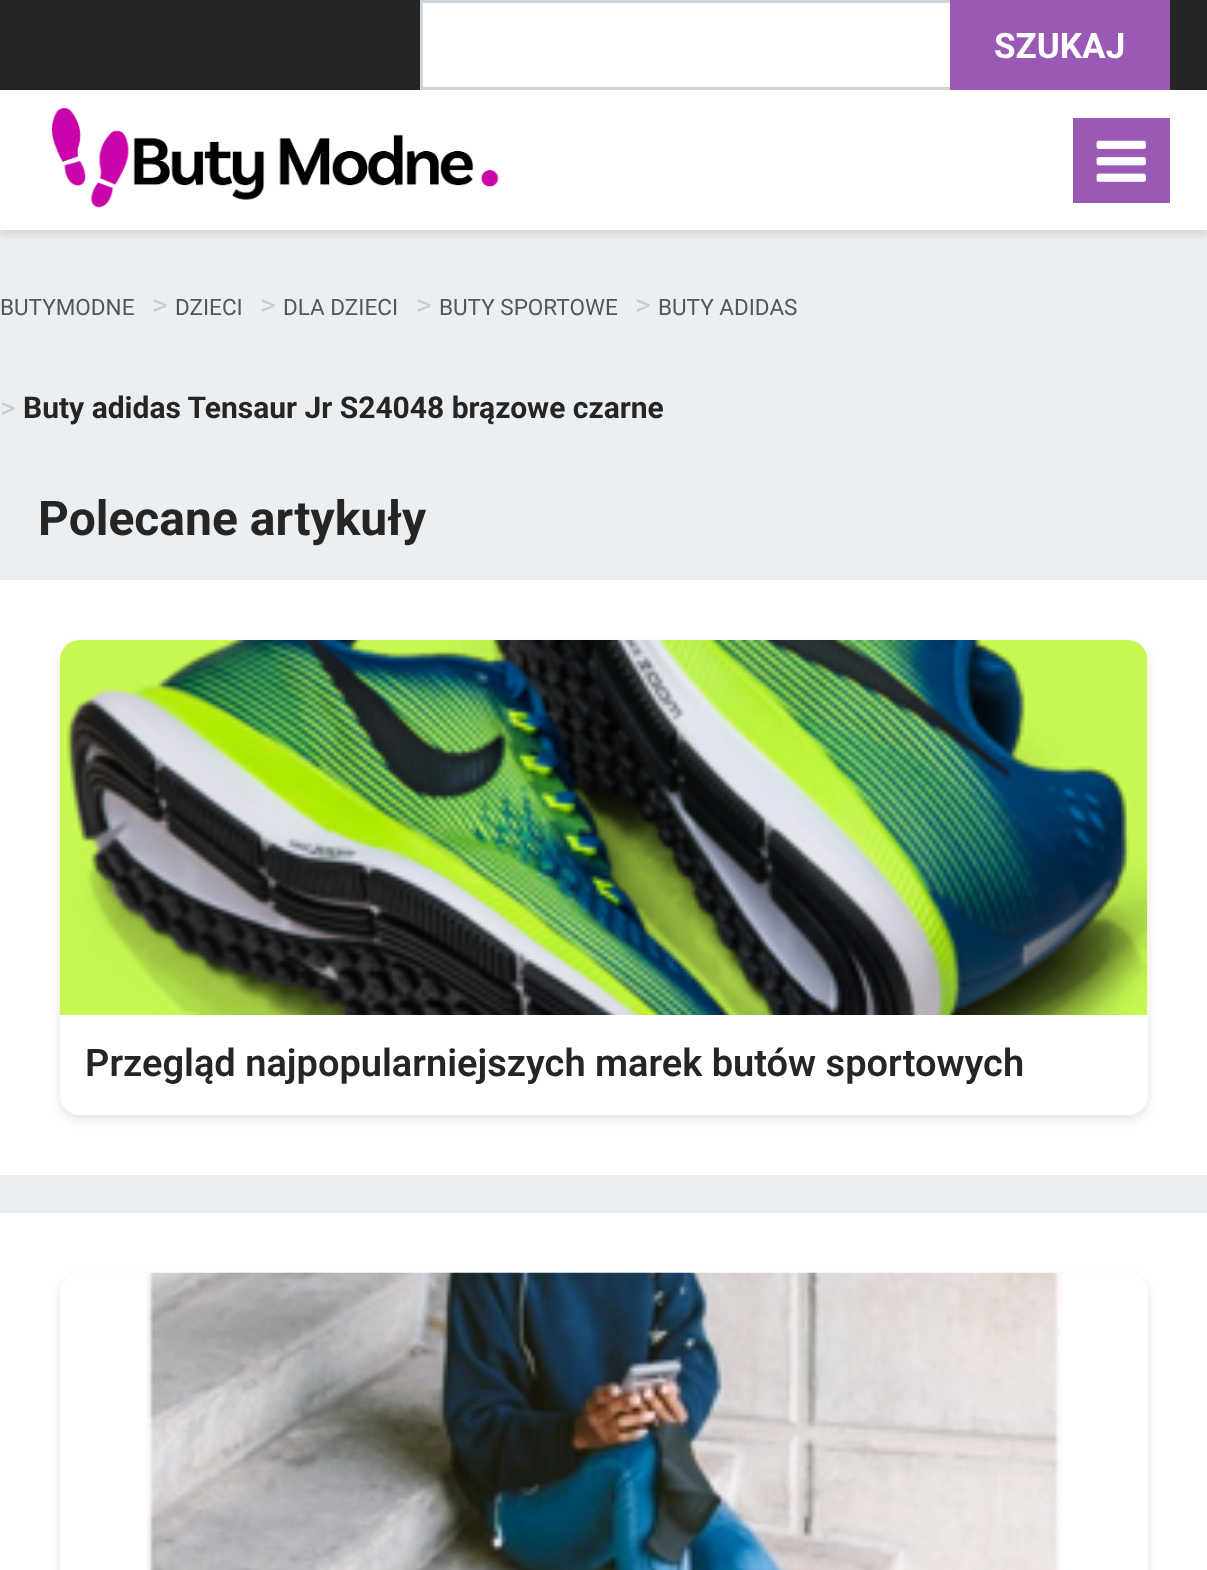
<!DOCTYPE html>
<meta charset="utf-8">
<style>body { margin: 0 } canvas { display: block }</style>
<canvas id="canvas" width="1207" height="1570"></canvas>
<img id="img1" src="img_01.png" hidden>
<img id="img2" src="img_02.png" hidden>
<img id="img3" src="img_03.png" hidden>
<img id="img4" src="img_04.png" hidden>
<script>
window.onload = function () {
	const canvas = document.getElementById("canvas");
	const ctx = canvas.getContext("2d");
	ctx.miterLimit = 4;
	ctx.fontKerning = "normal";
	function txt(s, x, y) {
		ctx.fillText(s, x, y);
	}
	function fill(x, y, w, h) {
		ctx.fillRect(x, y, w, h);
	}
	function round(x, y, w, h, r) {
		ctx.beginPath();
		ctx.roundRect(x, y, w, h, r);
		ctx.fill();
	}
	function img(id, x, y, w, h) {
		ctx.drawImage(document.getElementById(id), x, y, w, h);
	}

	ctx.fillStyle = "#FFFFFF";
	fill(0, 0, 1207, 1570);
	ctx.fillStyle = "#252525";
	fill(0, 0, 1207, 90);
	ctx.fillStyle = "#FFFFFF";
	fill(423, 3, 527, 84);
	ctx.strokeStyle = "#CED4DA";
	ctx.lineWidth = 3;
	ctx.strokeRect(421.5, 1.5, 747, 87);
	ctx.fillStyle = "#ECEFF1";
	fill(0, 230, 1207, 983);
	ctx.save();
	ctx.beginPath();
	ctx.rect(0, 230, 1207, 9);
	ctx.clip();
	ctx.fillStyle = "rgba(0, 0, 0, 0.1)";
	ctx.filter = "blur(5px)";
	ctx.beginPath();
	ctx.rect(0, 95, 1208, 140);
	ctx.fill();
	ctx.filter = "none";
	ctx.restore();
	ctx.fillStyle = "#9B59B6";
	fill(950, 0, 220, 90);
	img("img1", 52, 107, 447, 101);
	fill(1073, 118, 97, 85);
	img("img2", 1096, 140, 50, 42);
	ctx.fillStyle = "#FFFFFF";
	fill(0, 580, 1207, 595);
	ctx.fillStyle = "rgba(0, 0, 0, 0.1)";
	ctx.filter = "blur(5px)";
	ctx.beginPath();
	ctx.roundRect(60, 645, 1088, 475, 20);
	ctx.fill();
	ctx.filter = "none";
	ctx.fillStyle = "#FFFFFF";
	round(60, 640, 1088, 475, 20);
	img("img3", 60, 640, 1088, 375);
	ctx.fillStyle = "rgba(0, 0, 0, 0.1)";
	ctx.filter = "blur(5px)";
	ctx.beginPath();
	ctx.roundRect(60, 1278, 1088, 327, 20);
	ctx.fill();
	ctx.filter = "none";
	ctx.fillStyle = "#FFFFFF";
	round(60, 1273, 1088, 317, 20);
	img("img4", 146, 1272, 916, 298);
	ctx.font = "bold 35px Roboto";
	txt("SZUKAJ", 994, 58);
	ctx.font = "22.5px Roboto";
	ctx.fillStyle = "#565656";
	txt("BUTYMODNE", 0, 315);
	ctx.font = "30px Roboto";
	ctx.fillStyle = "#CCCCCC";
	txt(">", 152, 315);
	ctx.font = "22.5px Roboto";
	ctx.fillStyle = "#565656";
	txt("DZIECI", 175, 315);
	ctx.font = "30px Roboto";
	ctx.fillStyle = "#CCCCCC";
	txt(">", 260, 315);
	ctx.font = "22.5px Roboto";
	ctx.fillStyle = "#565656";
	txt("DLA DZIECI", 283, 315);
	ctx.font = "30px Roboto";
	ctx.fillStyle = "#CCCCCC";
	txt(">", 416, 315);
	ctx.font = "22.5px Roboto";
	ctx.fillStyle = "#565656";
	txt("BUTY SPORTOWE", 439, 315);
	ctx.font = "30px Roboto";
	ctx.fillStyle = "#CCCCCC";
	txt(">", 635, 315);
	ctx.font = "22.5px Roboto";
	ctx.fillStyle = "#565656";
	txt("BUTY ADIDAS", 658, 315);
	ctx.font = "30px Roboto";
	ctx.fillStyle = "#CCCCCC";
	txt(">", 0, 418);
	ctx.font = "bold 30px Roboto";
	ctx.fillStyle = "#252525";
	txt("Buty adidas Tensaur Jr S24048 brązowe czarne", 23, 418);
	ctx.font = "bold 48px Roboto";
	txt("Polecane artykuły", 38, 535);
	ctx.font = "600 38px Roboto";
	txt("Przegląd najpopularniejszych marek butów sportowych", 85, 1076);
};
</script>
